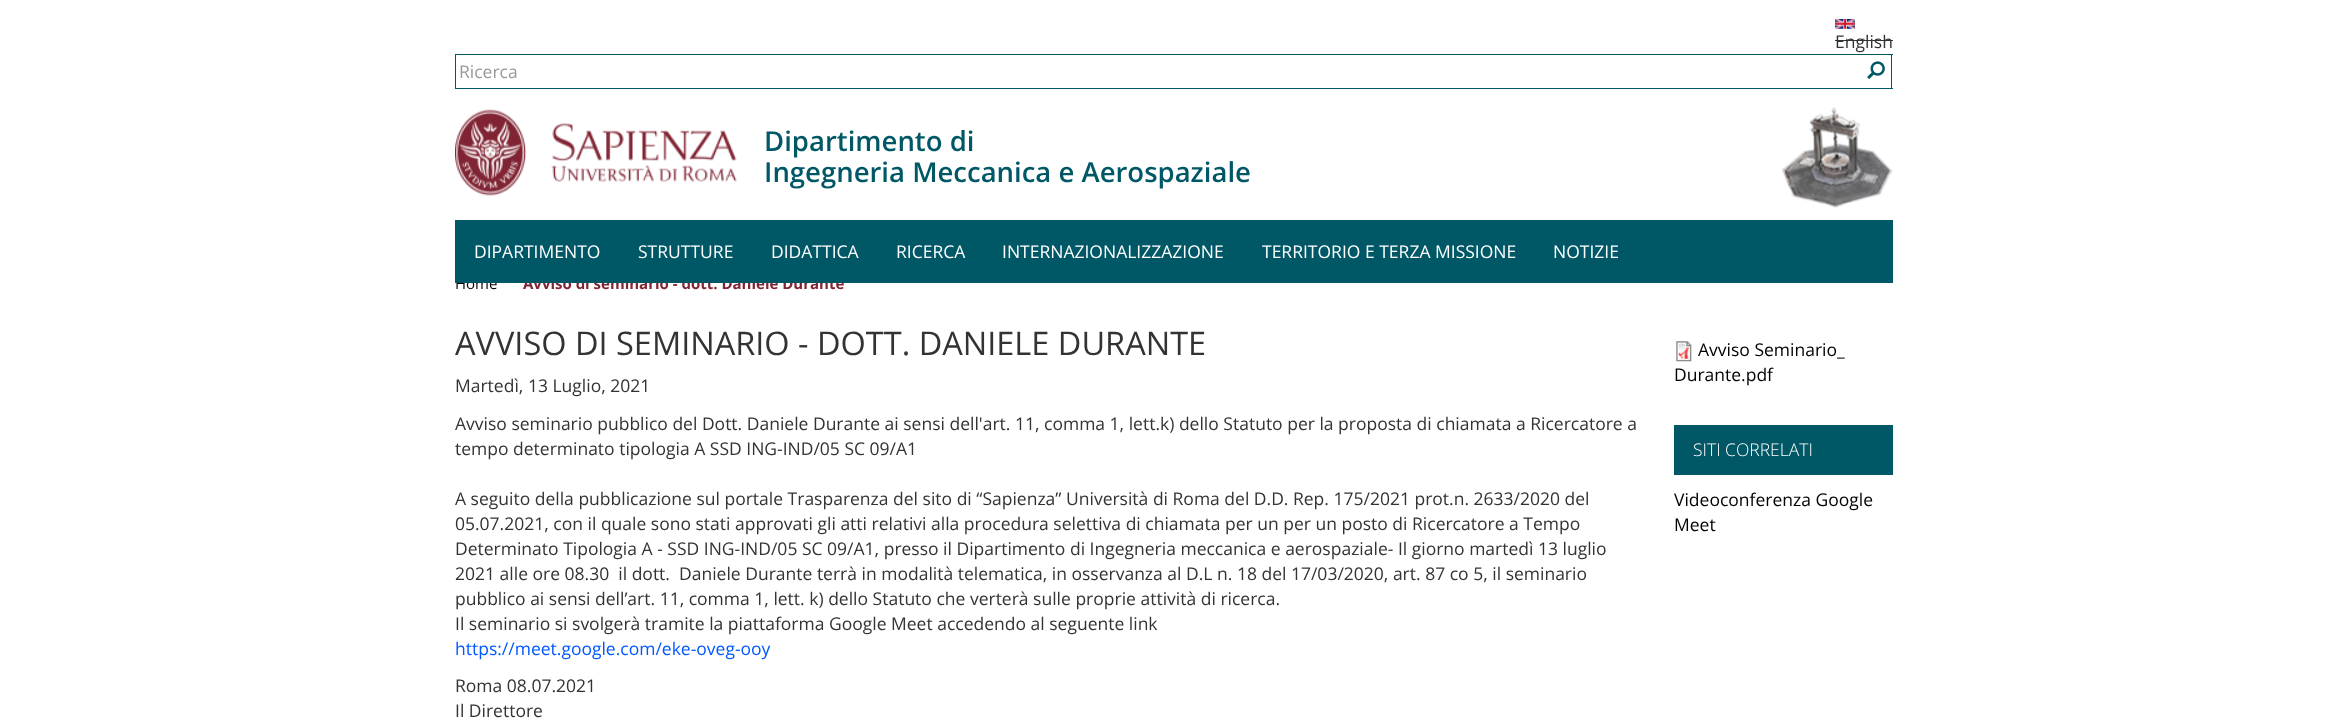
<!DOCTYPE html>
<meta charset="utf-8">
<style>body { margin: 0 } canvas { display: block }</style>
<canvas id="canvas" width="2347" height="725"></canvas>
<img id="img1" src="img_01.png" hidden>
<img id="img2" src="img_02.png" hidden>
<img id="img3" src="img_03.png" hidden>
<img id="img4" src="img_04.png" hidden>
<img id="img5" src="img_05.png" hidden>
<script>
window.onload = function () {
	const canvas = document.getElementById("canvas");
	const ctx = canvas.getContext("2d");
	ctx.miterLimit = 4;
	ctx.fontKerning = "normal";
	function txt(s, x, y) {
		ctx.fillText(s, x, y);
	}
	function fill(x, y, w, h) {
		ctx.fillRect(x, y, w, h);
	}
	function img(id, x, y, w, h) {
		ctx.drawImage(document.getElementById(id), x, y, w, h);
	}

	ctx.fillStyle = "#FFFFFF";
	fill(0, 0, 2347, 725);
	img("img1", 1835, 19, 20, 10);
	ctx.fillStyle = "#333333";
	fill(1835, 40, 58, 1);
	ctx.fillStyle = "#005866";
	fill(455, 54, 1438, 1);
	fill(455, 88, 1408, 1);
	fill(455, 54, 1, 35);
	fill(1891, 54, 1, 35);
	fill(1861, 88, 32, 1);
	img("img2", 1867, 61, 18, 18);
	img("img3", 455, 109, 282, 87);
	img("img4", 1782, 107, 111, 101);
	img("img5", 1676, 341, 16, 21);
	fill(1674, 425, 219, 50);
	ctx.font = "17.5px Open Sans";
	ctx.fillStyle = "#333333";
	txt("English", 1835, 48);
	ctx.fillStyle = "#999999";
	txt("Ricerca", 459, 78);
	ctx.font = "600 27.5px Open Sans";
	ctx.fillStyle = "#005866";
	txt("Dipartimento di", 764, 151);
	txt("Ingegneria Meccanica e Aerospaziale", 764, 182);
	ctx.font = "15px Open Sans";
	ctx.fillStyle = "#000000";
	txt("Home", 455, 289);
	ctx.font = "bold 15px Open Sans";
	ctx.fillStyle = "#822433";
	txt("Avviso di seminario - dott. Daniele Durante", 523, 289);
	ctx.fillStyle = "#FFFFFF";
	fill(456, 277, 388, 6);
	ctx.fillStyle = "#005866";
	fill(455, 220, 1438, 63);
	ctx.font = "17.5px Open Sans";
	ctx.fillStyle = "#FFFFFF";
	txt("NOTIZIE", 1553, 258);
	txt("TERRITORIO E TERZA MISSIONE", 1262, 258);
	txt("INTERNAZIONALIZZAZIONE", 1002, 258);
	txt("RICERCA", 896, 258);
	txt("DIDATTICA", 771, 258);
	txt("STRUTTURE", 638, 258);
	txt("DIPARTIMENTO", 474, 258);
	ctx.font = "32.5px Open Sans";
	ctx.fillStyle = "#333333";
	txt("AVVISO DI SEMINARIO - DOTT. DANIELE DURANTE", 455, 355);
	ctx.font = "17.5px Open Sans";
	txt("Martedì, 13 Luglio, 2021", 455, 392);
	txt("Avviso seminario pubblico del Dott. Daniele Durante ai sensi dell'art. 11, comma 1, lett.k) dello Statuto per la proposta di chiamata a Ricercatore a", 455, 430);
	txt("tempo determinato tipologia A SSD ING-IND/05 SC 09/A1", 455, 455);
	txt("A seguito della pubblicazione sul portale Trasparenza del sito di “Sapienza” Università di Roma del D.D. Rep. 175/2021 prot.n. 2633/2020 del", 455, 505);
	txt("05.07.2021, con il quale sono stati approvati gli atti relativi alla procedura selettiva di chiamata per un per un posto di Ricercatore a Tempo", 455, 530);
	txt("Determinato Tipologia A - SSD ING-IND/05 SC 09/A1, presso il Dipartimento di Ingegneria meccanica e aerospaziale- Il giorno martedì 13 luglio", 455, 555);
	txt("2021 alle ore 08.30  il dott.  Daniele Durante terrà in modalità telematica, in osservanza al D.L n. 18 del 17/03/2020, art. 87 co 5, il seminario", 455, 580);
	txt("pubblico ai sensi dell’art. 11, comma 1, lett. k) dello Statuto che verterà sulle proprie attività di ricerca.", 455, 605);
	txt("Il seminario si svolgerà tramite la piattaforma Google Meet accedendo al seguente link", 455, 630);
	ctx.fillStyle = "#0058FF";
	txt("https://meet.google.com/eke-oveg-ooy", 455, 655);
	ctx.fillStyle = "#333333";
	txt("Roma 08.07.2021", 455, 692);
	txt("Il Direttore", 455, 717);
	ctx.fillStyle = "#000000";
	txt("Avviso Seminario_", 1698, 356);
	txt("Durante.pdf", 1674, 381);
	ctx.font = "300 17.5px Open Sans";
	ctx.fillStyle = "#FFFFFF";
	txt("SITI CORRELATI", 1693, 456);
	ctx.font = "17.5px Open Sans";
	ctx.fillStyle = "#000000";
	txt("Videoconferenza Google", 1674, 506);
	txt("Meet", 1674, 531);
};
</script>
